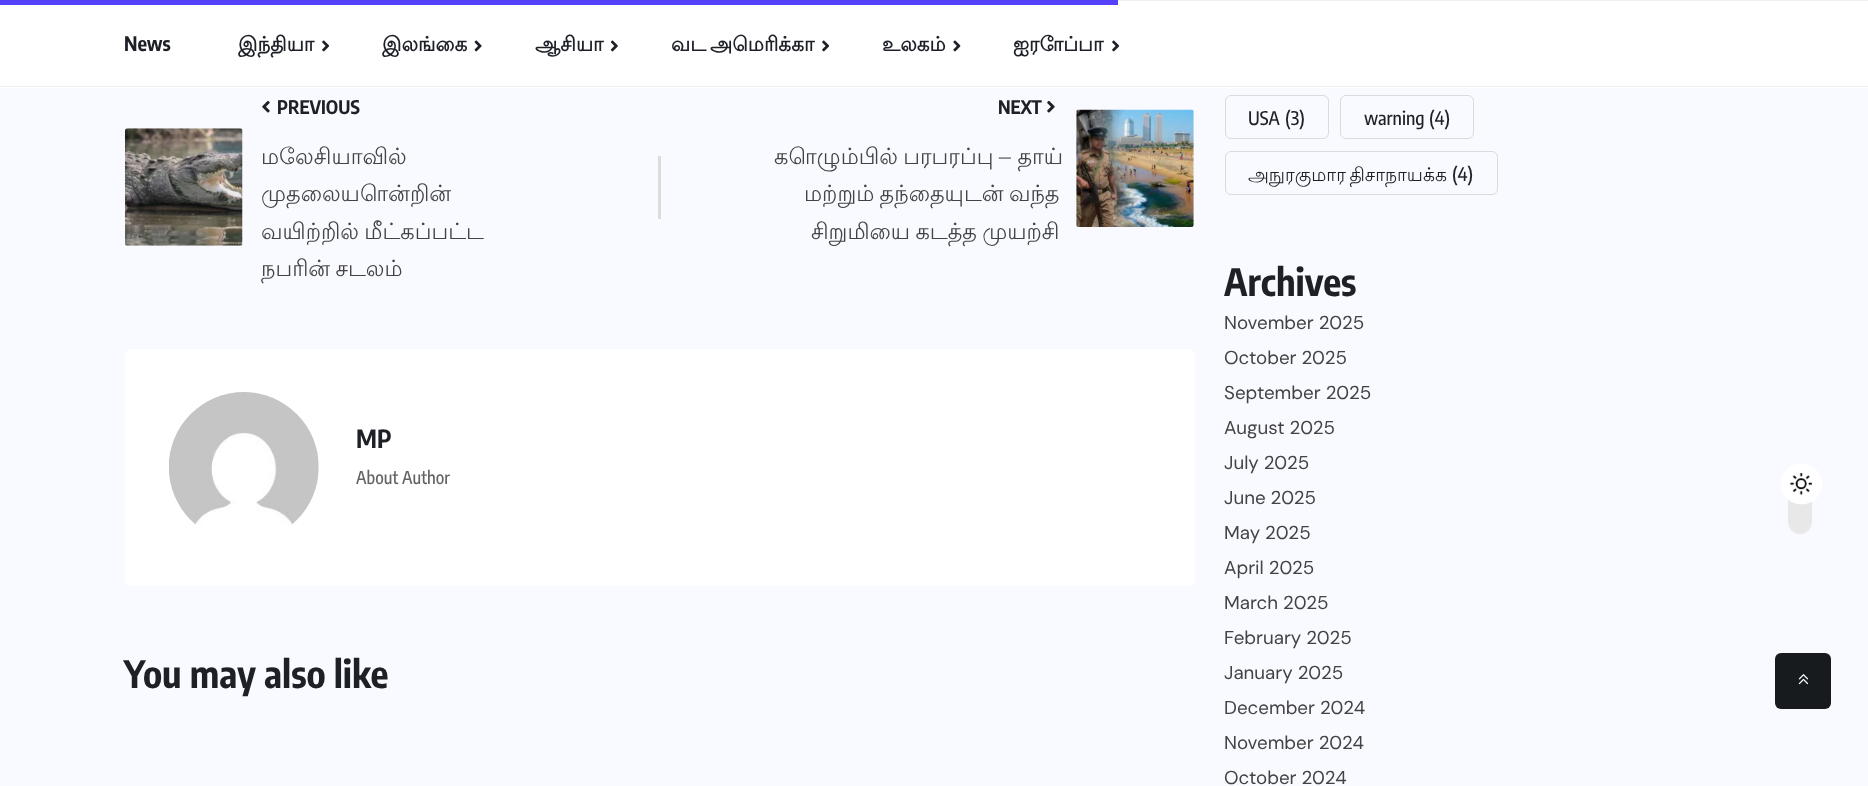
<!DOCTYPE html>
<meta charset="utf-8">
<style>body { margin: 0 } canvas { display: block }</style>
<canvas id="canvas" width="1868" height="786"></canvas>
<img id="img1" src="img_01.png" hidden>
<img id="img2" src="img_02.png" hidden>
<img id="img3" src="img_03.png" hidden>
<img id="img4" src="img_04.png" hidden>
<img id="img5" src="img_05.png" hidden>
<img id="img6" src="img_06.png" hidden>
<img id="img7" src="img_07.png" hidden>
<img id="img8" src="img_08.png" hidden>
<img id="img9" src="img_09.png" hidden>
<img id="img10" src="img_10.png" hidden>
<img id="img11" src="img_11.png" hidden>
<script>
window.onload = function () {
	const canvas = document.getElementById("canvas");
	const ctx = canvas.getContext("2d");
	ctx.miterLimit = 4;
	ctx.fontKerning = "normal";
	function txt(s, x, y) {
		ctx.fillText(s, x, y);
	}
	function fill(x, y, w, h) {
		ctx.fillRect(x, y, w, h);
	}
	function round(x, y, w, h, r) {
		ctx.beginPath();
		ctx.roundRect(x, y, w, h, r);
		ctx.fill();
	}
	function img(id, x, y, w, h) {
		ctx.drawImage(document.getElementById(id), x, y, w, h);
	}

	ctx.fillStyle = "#F9FAFF";
	fill(0, 0, 1868, 786);
	ctx.fillStyle = "#FFFFFF";
	fill(0, 1, 1868, 87);
	ctx.fillStyle = "#5541F8";
	fill(0, 0, 1118, 5);
	ctx.fillStyle = "#F0F0F0";
	fill(1118, 0, 750, 1);
	fill(0, 86, 1868, 1);
	img("img1", 322, 40, 8, 12);
	img("img2", 474, 40, 8, 12);
	img("img3", 610, 40, 8, 12);
	img("img1", 822, 40, 8, 12);
	img("img4", 953, 40, 8, 12);
	img("img1", 1112, 40, 8, 12);
	img("img5", 125, 128, 118, 118);
	img("img6", 262, 100, 8, 13);
	ctx.fillStyle = "#DCDCDC";
	fill(658, 156, 3, 63);
	img("img7", 1047, 100, 8, 13);
	img("img8", 1076, 109, 118, 118);
	ctx.fillStyle = "#FFFFFF";
	round(125, 349, 1070, 237, 6);
	img("img9", 169, 392, 150, 133);
	ctx.beginPath();
	ctx.roundRect(1225.5, 95.5, 103, 43, 5.5);
	ctx.strokeStyle = "#DBDBDB";
	ctx.stroke();
	ctx.beginPath();
	ctx.roundRect(1340.5, 95.5, 133, 43, 5.5);
	ctx.stroke();
	ctx.beginPath();
	ctx.roundRect(1225.5, 151.5, 272, 43, 5.5);
	ctx.stroke();
	ctx.fillStyle = "#E8E8E8";
	ctx.beginPath();
	ctx.moveTo(1812, 478);
	ctx.lineTo(1812, 521);
	ctx.bezierCurveTo(1812, 528, 1807, 534, 1800, 534);
	ctx.bezierCurveTo(1793, 534, 1788, 528, 1788, 521);
	ctx.lineTo(1788, 478);
	ctx.bezierCurveTo(1788, 471, 1793, 465, 1800, 465);
	ctx.bezierCurveTo(1807, 465, 1812, 471, 1812, 478);
	ctx.closePath();
	ctx.fill();
	ctx.fillStyle = "#FFFFFF";
	ctx.beginPath();
	ctx.moveTo(1822, 484);
	ctx.bezierCurveTo(1822, 511, 1781, 511, 1781, 484);
	ctx.bezierCurveTo(1781, 457, 1822, 457, 1822, 484);
	ctx.closePath();
	ctx.fill();
	img("img10", 1789, 473, 23, 23);
	ctx.fillStyle = "#181B1E";
	round(1775, 653, 56, 56, 6);
	img("img11", 1798, 674, 11, 11);
	ctx.font = "bold 20px Encode Sans Condensed";
	ctx.fillStyle = "#1D2027";
	txt("News", 124, 51);
	ctx.font = "bold 20px Lohit Tamil";
	txt("இந்தியா", 238, 51);
	txt("இலங்கை", 382, 51);
	txt("ஆசியா", 535, 51);
	ctx.wordSpacing = "-2px";
	txt("வட அமெரிக்கா", 671, 51);
	ctx.wordSpacing = "0px";
	txt("உலகம்", 882, 51);
	txt("ஐரோப்பா", 1013, 51);
	ctx.font = "bold 18.75px Encode Sans Condensed";
	txt("PREVIOUS", 277, 114);
	ctx.font = "22.5px Lohit Tamil";
	ctx.fillStyle = "#434343";
	txt("மலேசியாவில்", 261, 164);
	txt("முதலையொன்றின்", 261, 201);
	ctx.wordSpacing = "-1.5px";
	txt("வயிற்றில் மீட்கப்பட்ட", 261, 239);
	txt("நபரின் சடலம்", 261, 276);
	ctx.wordSpacing = "0px";
	ctx.font = "bold 18.75px Encode Sans Condensed";
	ctx.fillStyle = "#1D2027";
	txt("NEXT", 998, 114);
	ctx.wordSpacing = "-1.5px";
	ctx.font = "22.5px Lohit Tamil";
	ctx.fillStyle = "#434343";
	txt("கொழும்பில் பரபரப்பு – தாய்", 774, 164);
	txt("மற்றும் தந்தையுடன் வந்த", 804, 201);
	txt("சிறுமியை கடத்த முயற்சி", 811, 239);
	ctx.wordSpacing = "0px";
	ctx.font = "bold 25px Encode Sans Condensed";
	ctx.fillStyle = "#1D2027";
	txt("MP", 356, 448);
	ctx.font = "500 17.5px Encode Sans Condensed";
	ctx.fillStyle = "#646464";
	txt("About Author", 356, 484);
	ctx.font = "bold 37.5px Encode Sans Condensed";
	ctx.fillStyle = "#1D2027";
	txt("You may also like", 124, 688);
	ctx.font = "500 18.75px Encode Sans Condensed";
	txt("USA", 1248, 125);
	txt("(3)", 1285, 125);
	txt("warning", 1364, 125);
	txt("(4)", 1429, 125);
	ctx.wordSpacing = "-2px";
	ctx.font = "18.75px Lohit Tamil";
	txt("அநுரகுமார திசாநாயக்க", 1248, 181);
	ctx.wordSpacing = "0px";
	ctx.font = "500 18.75px Encode Sans Condensed";
	txt("(4)", 1452, 181);
	ctx.font = "bold 37.5px Encode Sans Condensed";
	txt("Archives", 1224, 296);
	ctx.font = "18.75px DM Sans";
	ctx.fillStyle = "#434343";
	txt("November 2025", 1224, 329);
	txt("October 2025", 1224, 364);
	txt("September 2025", 1224, 399);
	txt("August 2025", 1224, 434);
	txt("July 2025", 1224, 469);
	txt("June 2025", 1224, 504);
	txt("May 2025", 1224, 539);
	txt("April 2025", 1224, 574);
	txt("March 2025", 1224, 609);
	txt("February 2025", 1224, 644);
	txt("January 2025", 1224, 679);
	txt("December 2024", 1224, 714);
	txt("November 2024", 1224, 749);
	txt("October 2024", 1224, 784);
};
</script>
